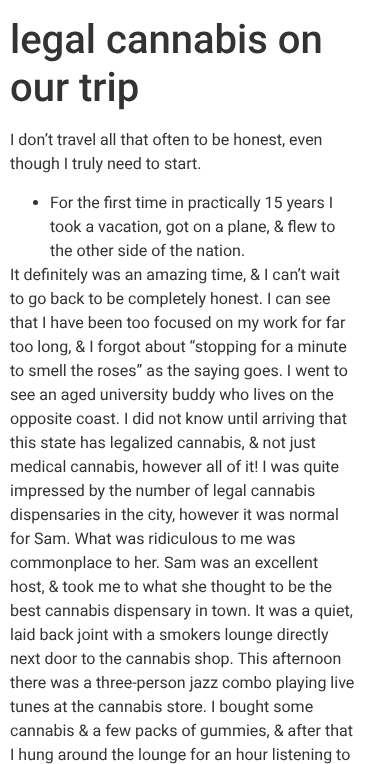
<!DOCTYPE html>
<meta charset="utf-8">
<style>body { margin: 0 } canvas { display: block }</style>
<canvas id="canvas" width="365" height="764"></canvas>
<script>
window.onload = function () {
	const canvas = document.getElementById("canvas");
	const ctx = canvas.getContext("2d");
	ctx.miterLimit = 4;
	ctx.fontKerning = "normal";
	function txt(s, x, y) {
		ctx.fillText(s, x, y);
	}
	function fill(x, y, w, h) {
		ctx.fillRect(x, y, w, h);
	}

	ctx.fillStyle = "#FFFFFF";
	fill(0, 0, 365, 764);
	ctx.fillStyle = "#333333";
	ctx.beginPath();
	ctx.arc(35.5, 202.5, 2.5, 0, Math.PI * 2);
	ctx.fill();
	ctx.font = "500 40px Roboto";
	txt("legal cannabis on", 10, 53);
	txt("our trip", 10, 101);
	ctx.font = "16px Roboto";
	txt("I don’t travel all that often to be honest, even", 10, 145);
	txt("though I truly need to start.", 10, 169);
	txt("For the first time in practically 15 years I", 50, 208);
	txt("took a vacation, got on a plane, & flew to", 50, 232);
	txt("the other side of the nation.", 50, 256);
	txt("It definitely was an amazing time, & I can’t wait", 10, 280);
	txt("to go back to be completely honest. I can see", 10, 304);
	txt("that I have been too focused on my work for far", 10, 328);
	txt("too long, & I forgot about “stopping for a minute", 10, 352);
	txt("to smell the roses” as the saying goes. I went to", 10, 376);
	txt("see an aged university buddy who lives on the", 10, 400);
	txt("opposite coast. I did not know until arriving that", 10, 424);
	txt("this state has legalized cannabis, & not just", 10, 448);
	txt("medical cannabis, however all of it! I was quite", 10, 472);
	txt("impressed by the number of legal cannabis", 10, 496);
	txt("dispensaries in the city, however it was normal", 10, 520);
	txt("for Sam. What was ridiculous to me was", 10, 544);
	txt("commonplace to her. Sam was an excellent", 10, 568);
	txt("host, & took me to what she thought to be the", 10, 592);
	txt("best cannabis dispensary in town. It was a quiet,", 10, 616);
	txt("laid back joint with a smokers lounge directly", 10, 640);
	txt("next door to the cannabis shop. This afternoon", 10, 664);
	txt("there was a three-person jazz combo playing live", 10, 688);
	txt("tunes at the cannabis store. I bought some", 10, 712);
	txt("cannabis & a few packs of gummies, & after that", 10, 736);
	txt("I hung around the lounge for an hour listening to", 10, 760);
};
</script>
